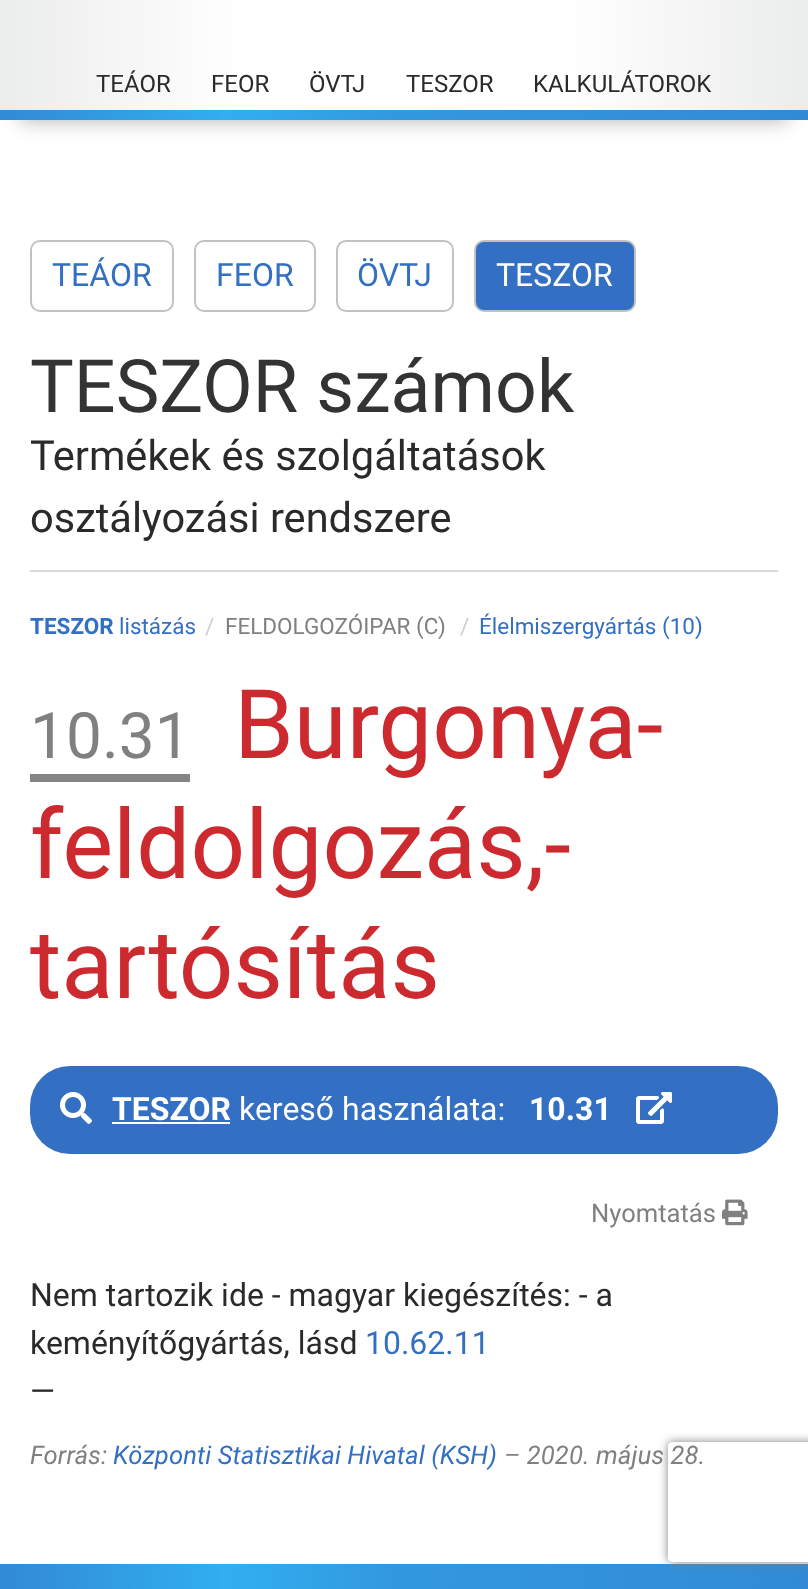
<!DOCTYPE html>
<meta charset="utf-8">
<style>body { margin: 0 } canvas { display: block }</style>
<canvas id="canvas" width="808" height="1589"></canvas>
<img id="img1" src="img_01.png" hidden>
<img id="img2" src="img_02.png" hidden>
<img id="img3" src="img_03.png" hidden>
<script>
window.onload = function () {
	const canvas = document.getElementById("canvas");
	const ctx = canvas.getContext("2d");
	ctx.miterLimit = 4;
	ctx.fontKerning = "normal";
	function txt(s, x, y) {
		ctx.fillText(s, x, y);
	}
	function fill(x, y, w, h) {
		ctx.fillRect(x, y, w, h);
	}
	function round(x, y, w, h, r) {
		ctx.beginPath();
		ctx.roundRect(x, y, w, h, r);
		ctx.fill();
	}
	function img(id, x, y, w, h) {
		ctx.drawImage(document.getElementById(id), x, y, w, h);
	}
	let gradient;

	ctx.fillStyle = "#FFFFFF";
	fill(0, 0, 808, 1589);
	ctx.fillStyle = "rgba(0, 0, 0, 0.32)";
	ctx.filter = "blur(10px)";
	ctx.beginPath();
	ctx.rect(20, 40, 768, 80);
	ctx.fill();
	ctx.filter = "none";
	gradient = ctx.createLinearGradient(0, 60, 808, 60);
	gradient.addColorStop(0, "#EBECEC");
	gradient.addColorStop(0.3, "#FFFFFF");
	gradient.addColorStop(0.7, "#FFFFFF");
	gradient.addColorStop(1, "#EBECEC");
	ctx.fillStyle = gradient;
	fill(0, 0, 808, 110);
	gradient = ctx.createLinearGradient(0, 115, 808, 115);
	gradient.addColorStop(0, "#328AD5");
	gradient.addColorStop(0.28, "#31AFF0");
	gradient.addColorStop(0.48, "#3299E0");
	gradient.addColorStop(1, "#328AD5");
	ctx.fillStyle = gradient;
	fill(0, 110, 808, 10);
	ctx.beginPath();
	ctx.roundRect(31, 241, 142, 70, 9);
	ctx.strokeStyle = "#C2C2C2";
	ctx.lineWidth = 2;
	ctx.stroke();
	ctx.beginPath();
	ctx.roundRect(195, 241, 120, 70, 9);
	ctx.stroke();
	ctx.beginPath();
	ctx.roundRect(337, 241, 116, 70, 9);
	ctx.stroke();
	ctx.fillStyle = "#336FC2";
	ctx.beginPath();
	ctx.roundRect(475, 241, 160, 70, 9);
	ctx.fill();
	ctx.stroke();
	ctx.fillStyle = "#D9D9D9";
	fill(30, 570, 748, 2);
	ctx.fillStyle = "#858585";
	fill(30, 774, 160, 8);
	ctx.fillStyle = "#336FC2";
	round(30, 1066, 748, 88, 40);
	img("img1", 60, 1092, 32, 32);
	ctx.fillStyle = "#FFFFFF";
	fill(112, 1122, 118, 2);
	img("img2", 636, 1092, 36, 32);
	img("img3", 722, 1199, 26, 27);
	gradient = ctx.createLinearGradient(0, 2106, 808, 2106);
	gradient.addColorStop(0, "#328AD5");
	gradient.addColorStop(0.28, "#31AFF0");
	gradient.addColorStop(0.48, "#3299E0");
	gradient.addColorStop(1, "#328AD5");
	ctx.fillStyle = gradient;
	fill(0, 1564, 808, 25);
	ctx.save();
	ctx.beginPath();
	ctx.moveTo(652, 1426);
	ctx.lineTo(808, 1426);
	ctx.lineTo(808, 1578);
	ctx.lineTo(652, 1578);
	ctx.closePath();
	ctx.moveTo(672, 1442);
	ctx.lineTo(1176, 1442);
	ctx.bezierCurveTo(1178, 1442, 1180, 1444, 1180, 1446);
	ctx.lineTo(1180, 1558);
	ctx.bezierCurveTo(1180, 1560, 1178, 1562, 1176, 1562);
	ctx.lineTo(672, 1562);
	ctx.bezierCurveTo(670, 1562, 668, 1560, 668, 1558);
	ctx.lineTo(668, 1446);
	ctx.bezierCurveTo(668, 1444, 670, 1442, 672, 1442);
	ctx.closePath();
	ctx.clip("evenodd");
	ctx.fillStyle = "#808080";
	ctx.filter = "blur(5px)";
	ctx.beginPath();
	ctx.roundRect(668, 1442, 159, 120, 4);
	ctx.fill();
	ctx.filter = "none";
	ctx.restore();
	ctx.font = "24px Roboto";
	ctx.fillStyle = "#2B2A29";
	txt("TEÁOR", 96, 92);
	txt("FEOR", 211, 92);
	txt("ÖVTJ", 309, 92);
	txt("TESZOR", 406, 92);
	txt("KALKULÁTOROK", 533, 92);
	ctx.font = "32px Roboto";
	ctx.fillStyle = "#336FC2";
	txt("TEÁOR", 52, 286);
	txt("FEOR", 216, 286);
	txt("ÖVTJ", 357, 286);
	ctx.fillStyle = "#FFFFFF";
	txt("TESZOR", 496, 286);
	ctx.font = "73.5px Roboto";
	ctx.fillStyle = "#333333";
	txt("TESZOR számok", 30, 412);
	ctx.font = "41.6px Roboto";
	ctx.fillStyle = "#2B2A29";
	txt("Termékek és szolgáltatások", 30, 470);
	txt("osztályozási rendszere", 30, 532);
	ctx.font = "bold 22.5px Roboto";
	ctx.fillStyle = "#336FC2";
	txt("TESZOR", 30, 634);
	ctx.font = "22.5px Roboto";
	txt("listázás", 119, 634);
	ctx.fillStyle = "#CECECE";
	txt("/", 205, 634);
	ctx.fillStyle = "#808080";
	txt("FELDOLGOZÓIPAR (C)", 225, 634);
	ctx.fillStyle = "#CECECE";
	txt("/", 460, 634);
	ctx.fillStyle = "#336FC2";
	txt("Élelmiszergyártás (10)", 479, 634);
	ctx.font = "64px Roboto";
	ctx.fillStyle = "#808080";
	txt("10.31", 30, 758);
	ctx.font = "96px Roboto";
	ctx.fillStyle = "#CD2A30";
	txt("Burgonya-", 234, 758);
	txt("feldolgozás,-", 30, 878);
	txt("tartósítás", 30, 998);
	ctx.font = "bold 32px Roboto";
	ctx.fillStyle = "#FFFFFF";
	txt("TESZOR", 112, 1120);
	ctx.font = "32px Roboto";
	txt("kereső használata:", 239, 1120);
	ctx.font = "bold 32px Roboto";
	txt("10.31", 529, 1120);
	ctx.font = "25.6px Roboto";
	ctx.fillStyle = "#808080";
	txt("Nyomtatás", 591, 1222);
	ctx.font = "32px Roboto";
	ctx.fillStyle = "#2B2A29";
	txt("Nem tartozik ide - magyar kiegészítés: - a", 30, 1306);
	txt("keményítőgyártás, lásd", 30, 1354);
	ctx.fillStyle = "#336FC2";
	txt("10.62.11", 365, 1354);
	ctx.fillStyle = "#2B2A29";
	txt("—", 30, 1402);
	ctx.font = "italic 25.6px Roboto";
	ctx.fillStyle = "#808080";
	txt("Forrás:", 30, 1464);
	ctx.fillStyle = "#336FC2";
	txt("Központi Statisztikai Hivatal (KSH)", 113, 1464);
	ctx.fillStyle = "#808080";
	txt("– 2020. május 28.", 504, 1464);
};
</script>
